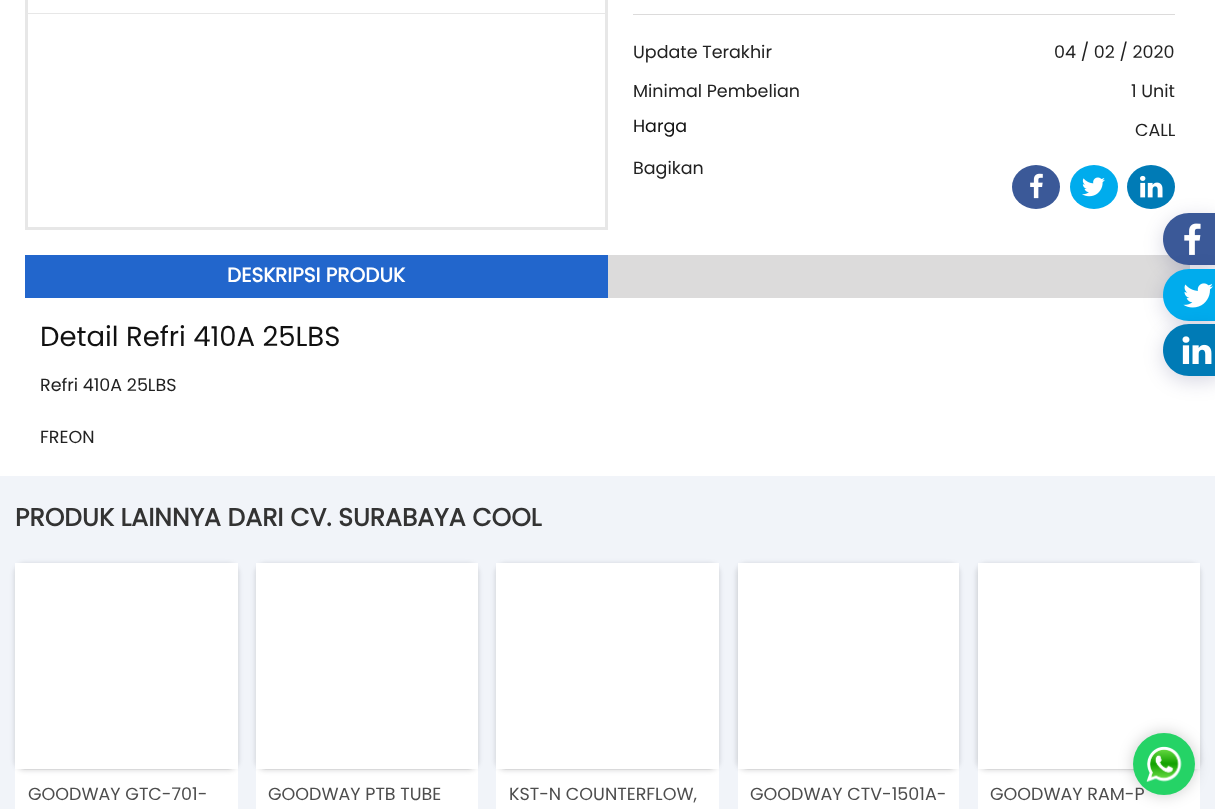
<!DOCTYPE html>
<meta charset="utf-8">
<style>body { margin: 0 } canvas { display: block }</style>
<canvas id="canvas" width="1215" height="809"></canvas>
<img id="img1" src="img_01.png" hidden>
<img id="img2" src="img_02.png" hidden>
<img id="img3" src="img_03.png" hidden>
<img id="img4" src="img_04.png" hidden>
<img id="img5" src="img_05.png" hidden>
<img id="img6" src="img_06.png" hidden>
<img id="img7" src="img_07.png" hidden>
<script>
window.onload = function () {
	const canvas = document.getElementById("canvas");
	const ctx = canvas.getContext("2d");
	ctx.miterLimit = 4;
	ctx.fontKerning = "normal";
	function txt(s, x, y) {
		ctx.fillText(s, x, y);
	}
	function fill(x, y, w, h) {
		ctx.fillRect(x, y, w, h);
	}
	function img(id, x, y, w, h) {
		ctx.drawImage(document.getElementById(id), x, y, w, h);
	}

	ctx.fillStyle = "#F1F4F9";
	fill(0, 0, 1215, 809);
	ctx.fillStyle = "#FFFFFF";
	fill(0, 0, 1215, 476);
	ctx.strokeStyle = "#E7E7E7";
	ctx.lineWidth = 3;
	ctx.strokeRect(26.5, -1.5, 580, 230);
	ctx.fillStyle = "#E7E7E7";
	fill(28, 13, 577, 1);
	ctx.fillStyle = "#DCDBDB";
	fill(633, 14, 542, 1);
	ctx.fillStyle = "#3B5998";
	ctx.beginPath();
	ctx.ellipse(1036, 187, 24, 22, 0, 0, Math.PI * 2);
	ctx.fill();
	img("img1", 1030, 173, 13, 26);
	ctx.fillStyle = "#00ACED";
	ctx.beginPath();
	ctx.ellipse(1094, 187, 24, 22, 0, 0, Math.PI * 2);
	ctx.fill();
	img("img2", 1082, 177, 23, 20);
	ctx.fillStyle = "#007BB6";
	ctx.beginPath();
	ctx.ellipse(1151, 187, 24, 22, 0, 0, Math.PI * 2);
	ctx.fill();
	img("img3", 1140, 175, 23, 23);
	ctx.fillStyle = "#DCDBDB";
	fill(608, 255, 582, 43);
	ctx.fillStyle = "#2266CC";
	fill(25, 255, 583, 43);
	ctx.fillStyle = "#FFFFFF";
	fill(15, 769, 223, 40);
	ctx.fillStyle = "rgba(60, 64, 67, 0.16)";
	ctx.filter = "blur(2px)";
	ctx.beginPath();
	ctx.roundRect(14, 563, 225, 208, 11);
	ctx.fill();
	ctx.filter = "none";
	ctx.fillStyle = "rgba(60, 64, 67, 0.08)";
	ctx.filter = "blur(0.5px)";
	ctx.beginPath();
	ctx.roundRect(15, 564, 223, 206, 10);
	ctx.fill();
	ctx.filter = "none";
	ctx.fillStyle = "#FFFFFF";
	fill(15, 563, 223, 206);
	fill(256, 769, 222, 40);
	ctx.fillStyle = "rgba(60, 64, 67, 0.16)";
	ctx.filter = "blur(2px)";
	ctx.beginPath();
	ctx.roundRect(255, 563, 224, 208, 11);
	ctx.fill();
	ctx.filter = "none";
	ctx.fillStyle = "rgba(60, 64, 67, 0.08)";
	ctx.filter = "blur(0.5px)";
	ctx.beginPath();
	ctx.roundRect(256, 564, 222, 206, 10);
	ctx.fill();
	ctx.filter = "none";
	ctx.fillStyle = "#FFFFFF";
	fill(256, 563, 222, 206);
	fill(496, 769, 223, 40);
	ctx.fillStyle = "rgba(60, 64, 67, 0.16)";
	ctx.filter = "blur(2px)";
	ctx.beginPath();
	ctx.roundRect(495, 563, 225, 208, 11);
	ctx.fill();
	ctx.filter = "none";
	ctx.fillStyle = "rgba(60, 64, 67, 0.08)";
	ctx.filter = "blur(0.5px)";
	ctx.beginPath();
	ctx.roundRect(496, 564, 223, 206, 10);
	ctx.fill();
	ctx.filter = "none";
	ctx.fillStyle = "#FFFFFF";
	fill(496, 563, 223, 206);
	fill(738, 769, 221, 40);
	ctx.fillStyle = "rgba(60, 64, 67, 0.16)";
	ctx.filter = "blur(2px)";
	ctx.beginPath();
	ctx.roundRect(736, 563, 224, 208, 11);
	ctx.fill();
	ctx.filter = "none";
	ctx.fillStyle = "rgba(60, 64, 67, 0.08)";
	ctx.filter = "blur(0.5px)";
	ctx.beginPath();
	ctx.roundRect(738, 564, 221, 206, 10);
	ctx.fill();
	ctx.filter = "none";
	ctx.fillStyle = "#FFFFFF";
	fill(738, 563, 221, 206);
	fill(978, 769, 222, 40);
	ctx.fillStyle = "rgba(60, 64, 67, 0.16)";
	ctx.filter = "blur(2px)";
	ctx.beginPath();
	ctx.roundRect(976, 563, 225, 208, 11);
	ctx.fill();
	ctx.filter = "none";
	ctx.fillStyle = "rgba(60, 64, 67, 0.08)";
	ctx.filter = "blur(0.5px)";
	ctx.beginPath();
	ctx.roundRect(978, 564, 222, 206, 10);
	ctx.fill();
	ctx.filter = "none";
	ctx.fillStyle = "#FFFFFF";
	fill(978, 563, 222, 206);
	ctx.fillStyle = "rgba(0, 0, 75, 0.16)";
	ctx.filter = "blur(10px)";
	ctx.beginPath();
	ctx.roundRect(1163, 218, 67, 52, 26);
	ctx.fill();
	ctx.filter = "none";
	ctx.fillStyle = "#3B5998";
	ctx.beginPath();
	ctx.moveTo(1189, 213);
	ctx.lineTo(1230, 213);
	ctx.lineTo(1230, 265);
	ctx.lineTo(1189, 265);
	ctx.bezierCurveTo(1174.5, 265, 1163, 253.5, 1163, 239);
	ctx.bezierCurveTo(1163, 224.5, 1174.5, 213, 1189, 213);
	ctx.closePath();
	ctx.fill();
	img("img4", 1184, 223, 17, 32);
	ctx.fillStyle = "rgba(0, 0, 75, 0.16)";
	ctx.filter = "blur(10px)";
	ctx.beginPath();
	ctx.roundRect(1163, 274, 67, 52, 26);
	ctx.fill();
	ctx.filter = "none";
	ctx.fillStyle = "#00ACED";
	ctx.beginPath();
	ctx.moveTo(1189, 269);
	ctx.lineTo(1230, 269);
	ctx.lineTo(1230, 321);
	ctx.lineTo(1189, 321);
	ctx.bezierCurveTo(1174.5, 321, 1163, 309.5, 1163, 295);
	ctx.bezierCurveTo(1163, 280.5, 1174.5, 269, 1189, 269);
	ctx.closePath();
	ctx.fill();
	img("img5", 1183, 283, 30, 25);
	ctx.fillStyle = "rgba(0, 0, 75, 0.16)";
	ctx.filter = "blur(10px)";
	ctx.beginPath();
	ctx.roundRect(1163, 329, 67, 52, 26);
	ctx.fill();
	ctx.filter = "none";
	ctx.fillStyle = "#007BB6";
	ctx.beginPath();
	ctx.moveTo(1189, 324);
	ctx.lineTo(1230, 324);
	ctx.lineTo(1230, 376);
	ctx.lineTo(1189, 376);
	ctx.bezierCurveTo(1174.5, 376, 1163, 364.5, 1163, 350);
	ctx.bezierCurveTo(1163, 335.5, 1174.5, 324, 1189, 324);
	ctx.closePath();
	ctx.fill();
	img("img6", 1182, 336, 30, 28);
	ctx.fillStyle = "rgba(0, 0, 0, 0.2)";
	ctx.filter = "blur(7.5px)";
	ctx.beginPath();
	ctx.roundRect(1133, 733, 62, 62, 31);
	ctx.fill();
	ctx.filter = "none";
	ctx.font = "17.5px Poppins";
	ctx.fillStyle = "#222222";
	txt("Update Terakhir", 633, 58);
	txt("04 / 02 / 2020", 1054, 58);
	txt("Minimal Pembelian", 633, 97);
	txt("1 Unit", 1131, 97);
	ctx.fillStyle = "#111111";
	txt("Harga", 633, 132);
	ctx.fillStyle = "#222222";
	txt("CALL", 1135, 136);
	txt("Bagikan", 633, 174);
	ctx.font = "bold 20px Poppins";
	ctx.fillStyle = "#FFFFFF";
	txt("DESKRIPSI PRODUK", 227, 282);
	ctx.font = "27.5px Poppins";
	ctx.fillStyle = "#111111";
	txt("Detail Refri 410A 25LBS", 40, 346);
	ctx.font = "17.5px Poppins";
	ctx.fillStyle = "#222222";
	txt("Refri 410A 25LBS", 40, 391);
	txt("FREON", 40, 443);
	ctx.font = "bold 25px Poppins";
	ctx.fillStyle = "#333333";
	txt("PRODUK LAINNYA DARI CV. SURABAYA COOL", 15, 526);
	ctx.font = "17.5px Poppins";
	ctx.fillStyle = "#4D4D4D";
	txt("GOODWAY GTC-701-", 28, 800);
	txt("GOODWAY PTB TUBE", 268, 800);
	txt("KST-N COUNTERFLOW,", 509, 800);
	txt("GOODWAY CTV-1501A-", 750, 800);
	txt("GOODWAY RAM-P", 990, 800);
	ctx.fillStyle = "#25D366";
	ctx.beginPath();
	ctx.arc(1164, 764, 31, 0, Math.PI * 2);
	ctx.fill();
	img("img7", 1146, 746, 36, 36);
};
</script>
